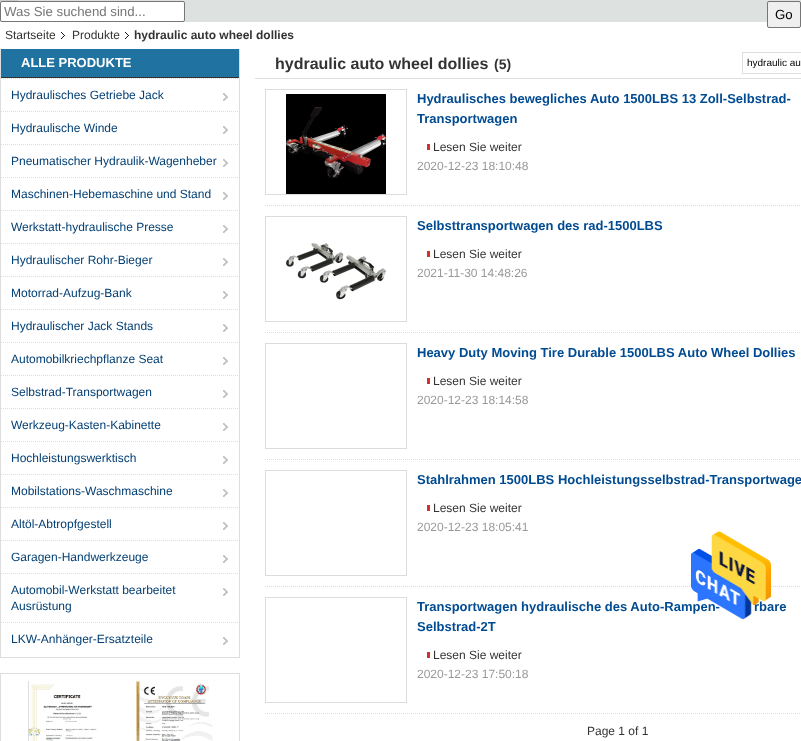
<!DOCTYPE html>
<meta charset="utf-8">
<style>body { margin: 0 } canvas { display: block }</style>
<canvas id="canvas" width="801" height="741"></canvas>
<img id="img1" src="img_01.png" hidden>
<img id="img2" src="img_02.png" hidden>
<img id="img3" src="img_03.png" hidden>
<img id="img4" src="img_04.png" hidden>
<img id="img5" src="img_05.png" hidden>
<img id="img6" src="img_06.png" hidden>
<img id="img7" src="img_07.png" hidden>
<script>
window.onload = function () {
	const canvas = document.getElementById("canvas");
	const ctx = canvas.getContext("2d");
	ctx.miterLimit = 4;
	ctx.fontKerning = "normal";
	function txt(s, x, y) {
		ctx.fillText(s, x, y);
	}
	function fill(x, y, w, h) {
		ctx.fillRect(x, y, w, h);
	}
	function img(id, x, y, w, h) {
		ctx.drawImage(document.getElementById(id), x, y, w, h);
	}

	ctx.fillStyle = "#FFFFFF";
	fill(0, 0, 801, 741);
	ctx.fillStyle = "#DDE1DF";
	fill(0, 0, 801, 22);
	ctx.strokeStyle = "#CCCCCC";
	ctx.strokeRect(0.5, -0.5, 17, 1);
	ctx.fillStyle = "#FFFFFF";
	ctx.beginPath();
	ctx.roundRect(0.5, 1.5, 184, 20, 1.5);
	ctx.fill();
	ctx.strokeStyle = "#767676";
	ctx.stroke();
	ctx.fillStyle = "#EFEFEF";
	ctx.beginPath();
	ctx.roundRect(767.5, 1.5, 33, 26, 1.5);
	ctx.fill();
	ctx.stroke();
	img("img1", 61, 32, 4, 7);
	img("img1", 125, 32, 4, 7);
	ctx.fillStyle = "#DEDEDE";
	fill(239, 49, 1, 609);
	fill(0, 657, 240, 1);
	fill(0, 49, 1, 609);
	ctx.fillStyle = "#2072A1";
	fill(1, 49, 238, 28);
	ctx.fillStyle = "#313131";
	fill(1, 77, 238, 1);
	ctx.beginPath();
	ctx.moveTo(1, 78.5);
	ctx.lineTo(241, 78.5);
	ctx.strokeStyle = "#DEDEDE";
	ctx.setLineDash([1, 1]);
	ctx.stroke();
	img("img2", 223, 93, 5, 8);
	ctx.beginPath();
	ctx.moveTo(1, 111.5);
	ctx.lineTo(241, 111.5);
	ctx.stroke();
	img("img2", 223, 126, 5, 8);
	ctx.beginPath();
	ctx.moveTo(1, 144.5);
	ctx.lineTo(241, 144.5);
	ctx.stroke();
	img("img2", 223, 159, 5, 8);
	ctx.beginPath();
	ctx.moveTo(1, 177.5);
	ctx.lineTo(241, 177.5);
	ctx.stroke();
	img("img2", 223, 192, 5, 8);
	ctx.beginPath();
	ctx.moveTo(1, 210.5);
	ctx.lineTo(241, 210.5);
	ctx.stroke();
	img("img2", 223, 225, 5, 8);
	ctx.beginPath();
	ctx.moveTo(1, 243.5);
	ctx.lineTo(241, 243.5);
	ctx.stroke();
	img("img2", 223, 258, 5, 8);
	ctx.beginPath();
	ctx.moveTo(1, 276.5);
	ctx.lineTo(241, 276.5);
	ctx.stroke();
	img("img2", 223, 291, 5, 8);
	ctx.beginPath();
	ctx.moveTo(1, 309.5);
	ctx.lineTo(241, 309.5);
	ctx.stroke();
	img("img2", 223, 324, 5, 8);
	ctx.beginPath();
	ctx.moveTo(1, 342.5);
	ctx.lineTo(241, 342.5);
	ctx.stroke();
	img("img2", 223, 357, 5, 8);
	ctx.beginPath();
	ctx.moveTo(1, 375.5);
	ctx.lineTo(241, 375.5);
	ctx.stroke();
	img("img2", 223, 390, 5, 8);
	ctx.beginPath();
	ctx.moveTo(1, 408.5);
	ctx.lineTo(241, 408.5);
	ctx.stroke();
	img("img2", 223, 423, 5, 8);
	ctx.beginPath();
	ctx.moveTo(1, 441.5);
	ctx.lineTo(241, 441.5);
	ctx.stroke();
	img("img2", 223, 456, 5, 8);
	ctx.beginPath();
	ctx.moveTo(1, 474.5);
	ctx.lineTo(241, 474.5);
	ctx.stroke();
	img("img2", 223, 489, 5, 8);
	ctx.beginPath();
	ctx.moveTo(1, 507.5);
	ctx.lineTo(241, 507.5);
	ctx.stroke();
	img("img2", 223, 522, 5, 8);
	ctx.beginPath();
	ctx.moveTo(1, 540.5);
	ctx.lineTo(241, 540.5);
	ctx.stroke();
	img("img2", 223, 555, 5, 8);
	ctx.beginPath();
	ctx.moveTo(1, 573.5);
	ctx.lineTo(241, 573.5);
	ctx.stroke();
	img("img2", 223, 588, 5, 8);
	ctx.beginPath();
	ctx.moveTo(1, 622.5);
	ctx.lineTo(241, 622.5);
	ctx.stroke();
	img("img2", 223, 637, 5, 8);
	ctx.setLineDash([]);
	ctx.strokeRect(0.5, 673.5, 239, 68);
	img("img3", 28, 681, 69, 60);
	img("img4", 136, 681, 77, 60);
	ctx.fillStyle = "#DEDEDE";
	fill(255, 78, 546, 1);
	ctx.strokeRect(742.5, 52.5, 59, 21);
	ctx.beginPath();
	ctx.moveTo(265, 205.5);
	ctx.lineTo(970, 205.5);
	ctx.strokeStyle = "#DCDCDC";
	ctx.setLineDash([1, 1]);
	ctx.stroke();
	ctx.setLineDash([]);
	ctx.strokeRect(265.5, 89.5, 141, 105);
	img("img5", 286, 94, 100, 100);
	ctx.fillStyle = "#D4312E";
	fill(427, 144, 3, 6);
	ctx.beginPath();
	ctx.moveTo(265, 332.5);
	ctx.lineTo(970, 332.5);
	ctx.setLineDash([1, 1]);
	ctx.stroke();
	ctx.setLineDash([]);
	ctx.strokeRect(265.5, 216.5, 141, 105);
	img("img6", 286, 242, 100, 58);
	fill(427, 251, 3, 6);
	ctx.beginPath();
	ctx.moveTo(265, 459.5);
	ctx.lineTo(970, 459.5);
	ctx.setLineDash([1, 1]);
	ctx.stroke();
	ctx.setLineDash([]);
	ctx.strokeRect(265.5, 343.5, 141, 105);
	fill(427, 378, 3, 6);
	ctx.beginPath();
	ctx.moveTo(265, 586.5);
	ctx.lineTo(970, 586.5);
	ctx.setLineDash([1, 1]);
	ctx.stroke();
	ctx.setLineDash([]);
	ctx.strokeRect(265.5, 470.5, 141, 105);
	fill(427, 505, 3, 6);
	ctx.beginPath();
	ctx.moveTo(265, 713.5);
	ctx.lineTo(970, 713.5);
	ctx.setLineDash([1, 1]);
	ctx.stroke();
	ctx.setLineDash([]);
	ctx.strokeRect(265.5, 597.5, 141, 105);
	fill(427, 652, 3, 6);
	ctx.font = "13.25px Liberation Sans";
	ctx.fillStyle = "#757575";
	txt("Was Sie suchend sind...", 4, 16);
	ctx.fillStyle = "#000000";
	txt("Go", 775, 19);
	ctx.font = "12px Liberation Sans";
	ctx.fillStyle = "#333333";
	txt("Startseite", 5, 39);
	txt("Produkte", 72, 39);
	ctx.font = "bold 12px Liberation Sans";
	txt("hydraulic auto wheel dollies", 134, 39);
	ctx.font = "bold 13px Liberation Sans";
	ctx.fillStyle = "#FFFFFF";
	txt("ALLE PRODUKTE", 21, 67);
	ctx.font = "12px Liberation Sans";
	ctx.fillStyle = "#023F74";
	txt("Hydraulisches Getriebe Jack", 11, 99);
	txt("Hydraulische Winde", 11, 132);
	txt("Pneumatischer Hydraulik-Wagenheber", 11, 165);
	txt("Maschinen-Hebemaschine und Stand", 11, 198);
	txt("Werkstatt-hydraulische Presse", 11, 231);
	txt("Hydraulischer Rohr-Bieger", 11, 264);
	txt("Motorrad-Aufzug-Bank", 11, 297);
	txt("Hydraulischer Jack Stands", 11, 330);
	txt("Automobilkriechpflanze Seat", 11, 363);
	txt("Selbstrad-Transportwagen", 11, 396);
	txt("Werkzeug-Kasten-Kabinette", 11, 429);
	txt("Hochleistungswerktisch", 11, 462);
	txt("Mobilstations-Waschmaschine", 11, 495);
	txt("Altöl-Abtropfgestell", 11, 528);
	txt("Garagen-Handwerkzeuge", 11, 561);
	txt("Automobil-Werkstatt bearbeitet", 11, 594);
	txt("Ausrüstung", 11, 610);
	txt("LKW-Anhänger-Ersatzteile", 11, 643);
	ctx.font = "bold 16px Liberation Sans";
	ctx.fillStyle = "#333333";
	txt("hydraulic auto wheel dollies", 275, 69);
	ctx.font = "bold 14px Liberation Sans";
	txt("(5)", 494, 69);
	ctx.font = "10px Liberation Sans";
	ctx.fillStyle = "#000000";
	txt("hydraulic au", 747, 66);
	ctx.font = "bold 13px Liberation Sans";
	ctx.fillStyle = "#004B91";
	txt("Hydraulisches bewegliches Auto 1500LBS 13 Zoll-Selbstrad-", 417, 103);
	txt("Transportwagen", 417, 123);
	ctx.font = "12px Liberation Sans";
	ctx.fillStyle = "#333333";
	txt("Lesen Sie weiter", 433, 151);
	ctx.fillStyle = "#999999";
	txt("2020-12-23 18:10:48", 417, 170);
	ctx.font = "bold 13px Liberation Sans";
	ctx.fillStyle = "#004B91";
	txt("Selbsttransportwagen des rad-1500LBS", 417, 230);
	ctx.font = "12px Liberation Sans";
	ctx.fillStyle = "#333333";
	txt("Lesen Sie weiter", 433, 258);
	ctx.fillStyle = "#999999";
	txt("2021-11-30 14:48:26", 417, 277);
	ctx.font = "bold 13px Liberation Sans";
	ctx.fillStyle = "#004B91";
	txt("Heavy Duty Moving Tire Durable 1500LBS Auto Wheel Dollies", 417, 357);
	ctx.font = "12px Liberation Sans";
	ctx.fillStyle = "#333333";
	txt("Lesen Sie weiter", 433, 385);
	ctx.fillStyle = "#999999";
	txt("2020-12-23 18:14:58", 417, 404);
	ctx.font = "bold 13px Liberation Sans";
	ctx.fillStyle = "#004B91";
	txt("Stahlrahmen 1500LBS Hochleistungsselbstrad-Transportwage", 417, 484);
	ctx.font = "12px Liberation Sans";
	ctx.fillStyle = "#333333";
	txt("Lesen Sie weiter", 433, 512);
	ctx.fillStyle = "#999999";
	txt("2020-12-23 18:05:41", 417, 531);
	ctx.font = "bold 13px Liberation Sans";
	ctx.fillStyle = "#004B91";
	txt("Transportwagen hydraulische des Auto-Rampen-", 417, 611);
	txt("rbare", 754, 611);
	txt("Selbstrad-2T", 417, 631);
	ctx.font = "12px Liberation Sans";
	ctx.fillStyle = "#333333";
	txt("Lesen Sie weiter", 433, 659);
	ctx.fillStyle = "#999999";
	txt("2020-12-23 17:50:18", 417, 678);
	ctx.fillStyle = "#333333";
	txt("Page 1 of 1", 587, 735);
	img("img7", 691, 531, 80, 89);
};
</script>
